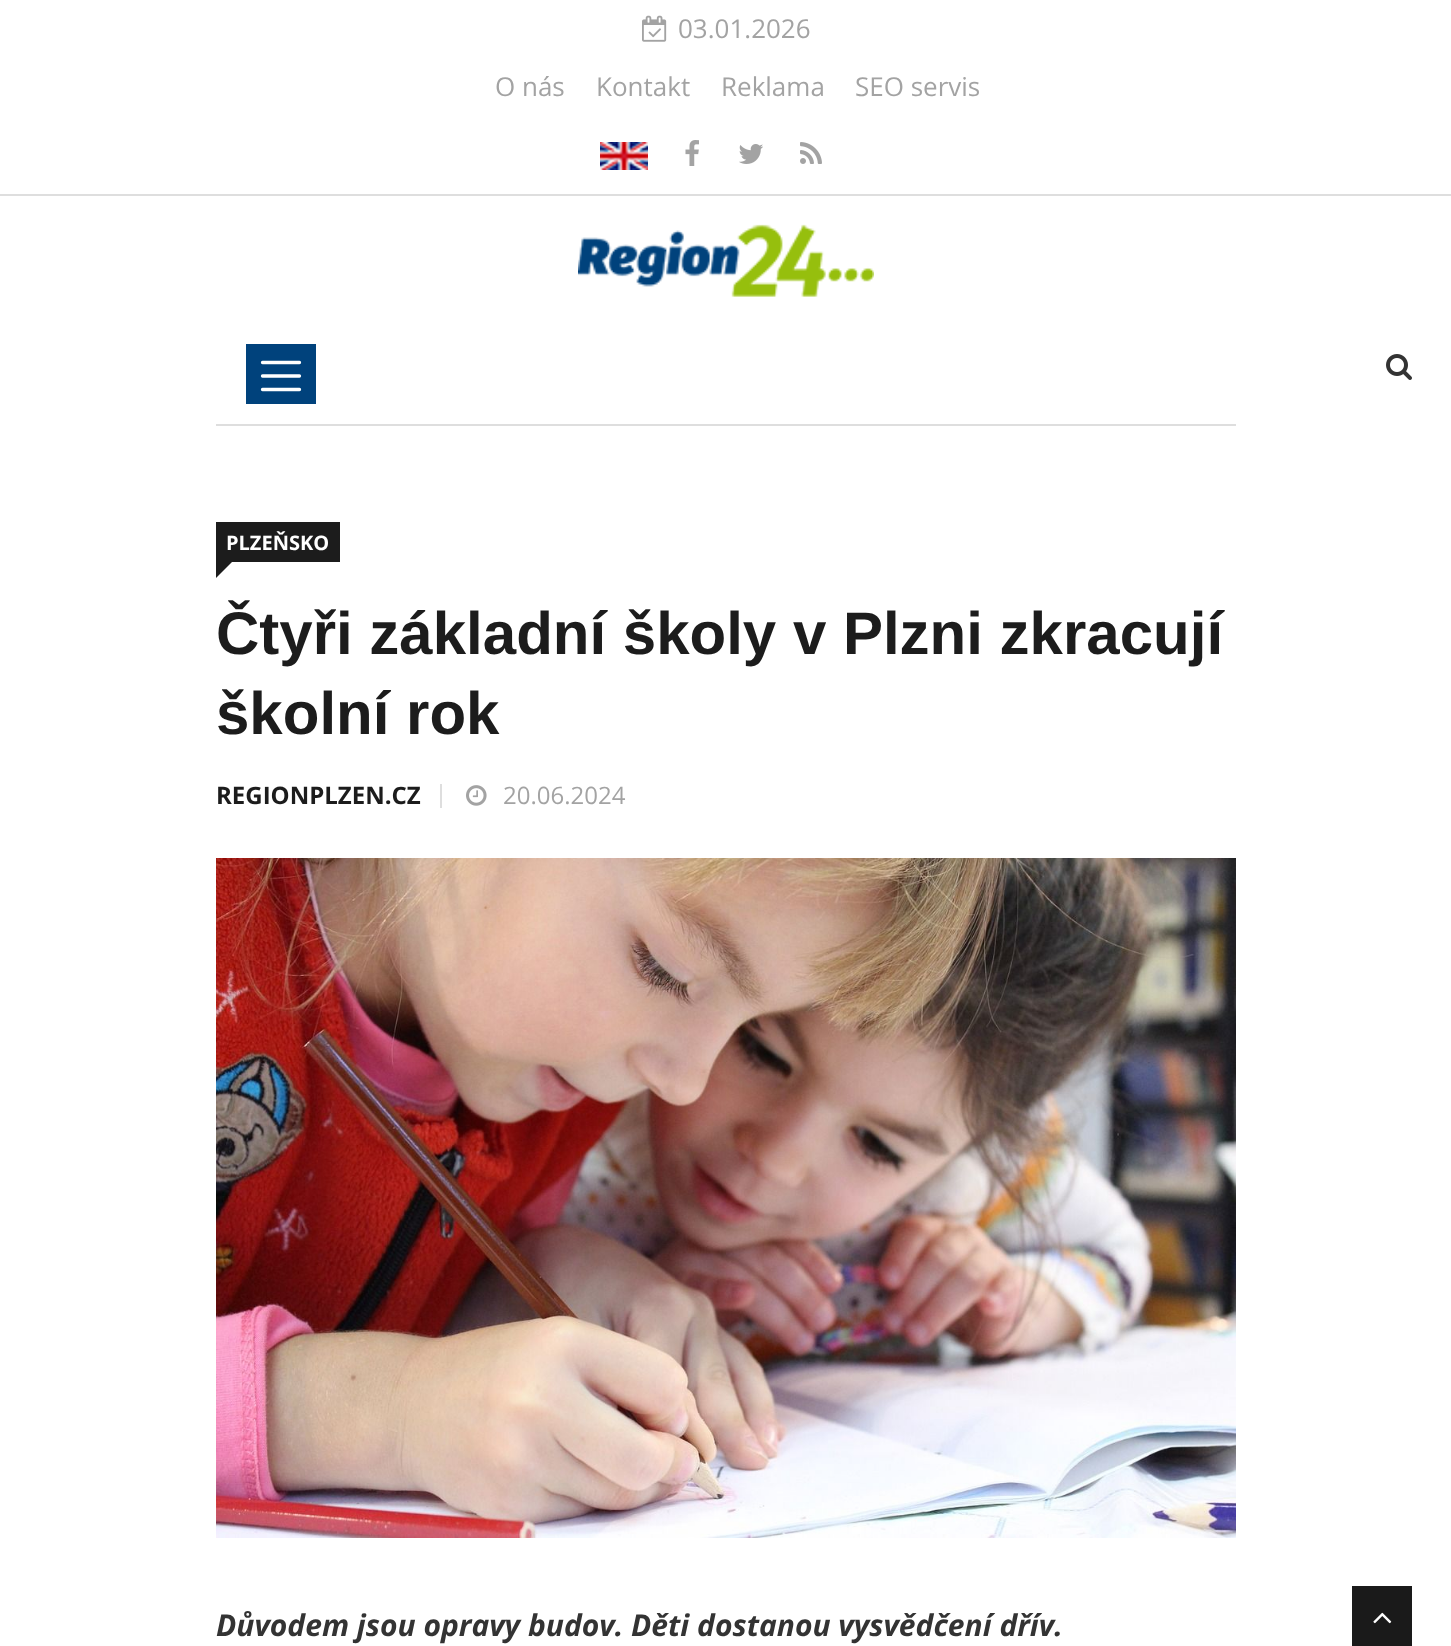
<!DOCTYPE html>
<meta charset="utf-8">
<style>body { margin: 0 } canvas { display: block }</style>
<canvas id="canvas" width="1451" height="1646"></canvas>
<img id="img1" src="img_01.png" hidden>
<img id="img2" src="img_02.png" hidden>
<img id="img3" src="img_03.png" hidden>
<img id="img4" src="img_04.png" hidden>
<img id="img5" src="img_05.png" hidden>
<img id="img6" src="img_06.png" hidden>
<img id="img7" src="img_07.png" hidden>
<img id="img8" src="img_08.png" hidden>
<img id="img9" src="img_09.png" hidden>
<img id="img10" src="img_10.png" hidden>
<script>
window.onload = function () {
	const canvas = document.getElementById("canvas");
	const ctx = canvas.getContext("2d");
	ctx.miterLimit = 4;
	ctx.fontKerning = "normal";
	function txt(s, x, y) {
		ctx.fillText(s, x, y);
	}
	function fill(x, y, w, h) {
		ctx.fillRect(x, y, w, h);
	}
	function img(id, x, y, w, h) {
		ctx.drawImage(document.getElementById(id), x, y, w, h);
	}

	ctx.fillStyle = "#FFFFFF";
	fill(0, 0, 1451, 1646);
	ctx.fillStyle = "#DEDEDE";
	fill(0, 194, 1451, 2);
	img("img1", 642, 15, 25, 27);
	img("img2", 600, 142, 48, 28);
	img("img3", 685, 140, 14, 26);
	img("img4", 739, 144, 24, 20);
	img("img5", 800, 142, 22, 22);
	fill(216, 424, 1020, 2);
	img("img6", 578, 224, 296, 73);
	ctx.fillStyle = "#00427C";
	fill(246, 344, 70, 60);
	ctx.beginPath();
	ctx.moveTo(262.5, 362.5);
	ctx.lineTo(299.5, 362.5);
	ctx.moveTo(262.5, 376);
	ctx.lineTo(299.5, 376);
	ctx.moveTo(262.5, 389.5);
	ctx.lineTo(299.5, 389.5);
	ctx.strokeStyle = "#FFFFFF";
	ctx.lineWidth = 3.3;
	ctx.lineCap = "round";
	ctx.stroke();
	img("img7", 1386, 354, 26, 26);
	ctx.fillStyle = "#1C1C1C";
	fill(216, 522, 124, 40);
	ctx.beginPath();
	ctx.moveTo(216, 562);
	ctx.lineTo(232, 562);
	ctx.lineTo(216, 578);
	ctx.closePath();
	ctx.fill();
	ctx.fillStyle = "#DEDEDE";
	fill(440, 784, 2, 24);
	img("img8", 466, 785, 21, 21);
	img("img9", 216, 858, 1020, 680);
	ctx.fillStyle = "#1A1A1A";
	fill(1352, 1586, 60, 60);
	img("img10", 1373, 1612, 19, 12);
	ctx.font = "26px Open Sans";
	ctx.fillStyle = "#A3A3A3";
	txt("03.01.2026", 678, 38);
	txt("O nás", 495, 96);
	txt("Kontakt", 596, 96);
	txt("Reklama", 721, 96);
	txt("SEO servis", 855, 96);
	ctx.font = "bold 20px Open Sans";
	ctx.fillStyle = "#FFFFFF";
	txt("PLZEŇSKO", 226, 550);
	ctx.font = "bold 60px Liberation Sans";
	ctx.fillStyle = "#1C1C1C";
	txt("Čtyři základní školy v Plzni zkracují", 216, 654);
	txt("školní rok", 216, 734);
	ctx.font = "bold 24px Open Sans";
	txt("REGIONPLZEN.CZ", 216, 804);
	ctx.font = "24px Open Sans";
	ctx.fillStyle = "#A3A3A3";
	txt("20.06.2024", 503, 804);
	ctx.font = "italic bold 30px Open Sans";
	ctx.fillStyle = "#333333";
	txt("Důvodem jsou opravy budov. Děti dostanou vysvědčení dřív.", 216, 1636);
};
</script>
